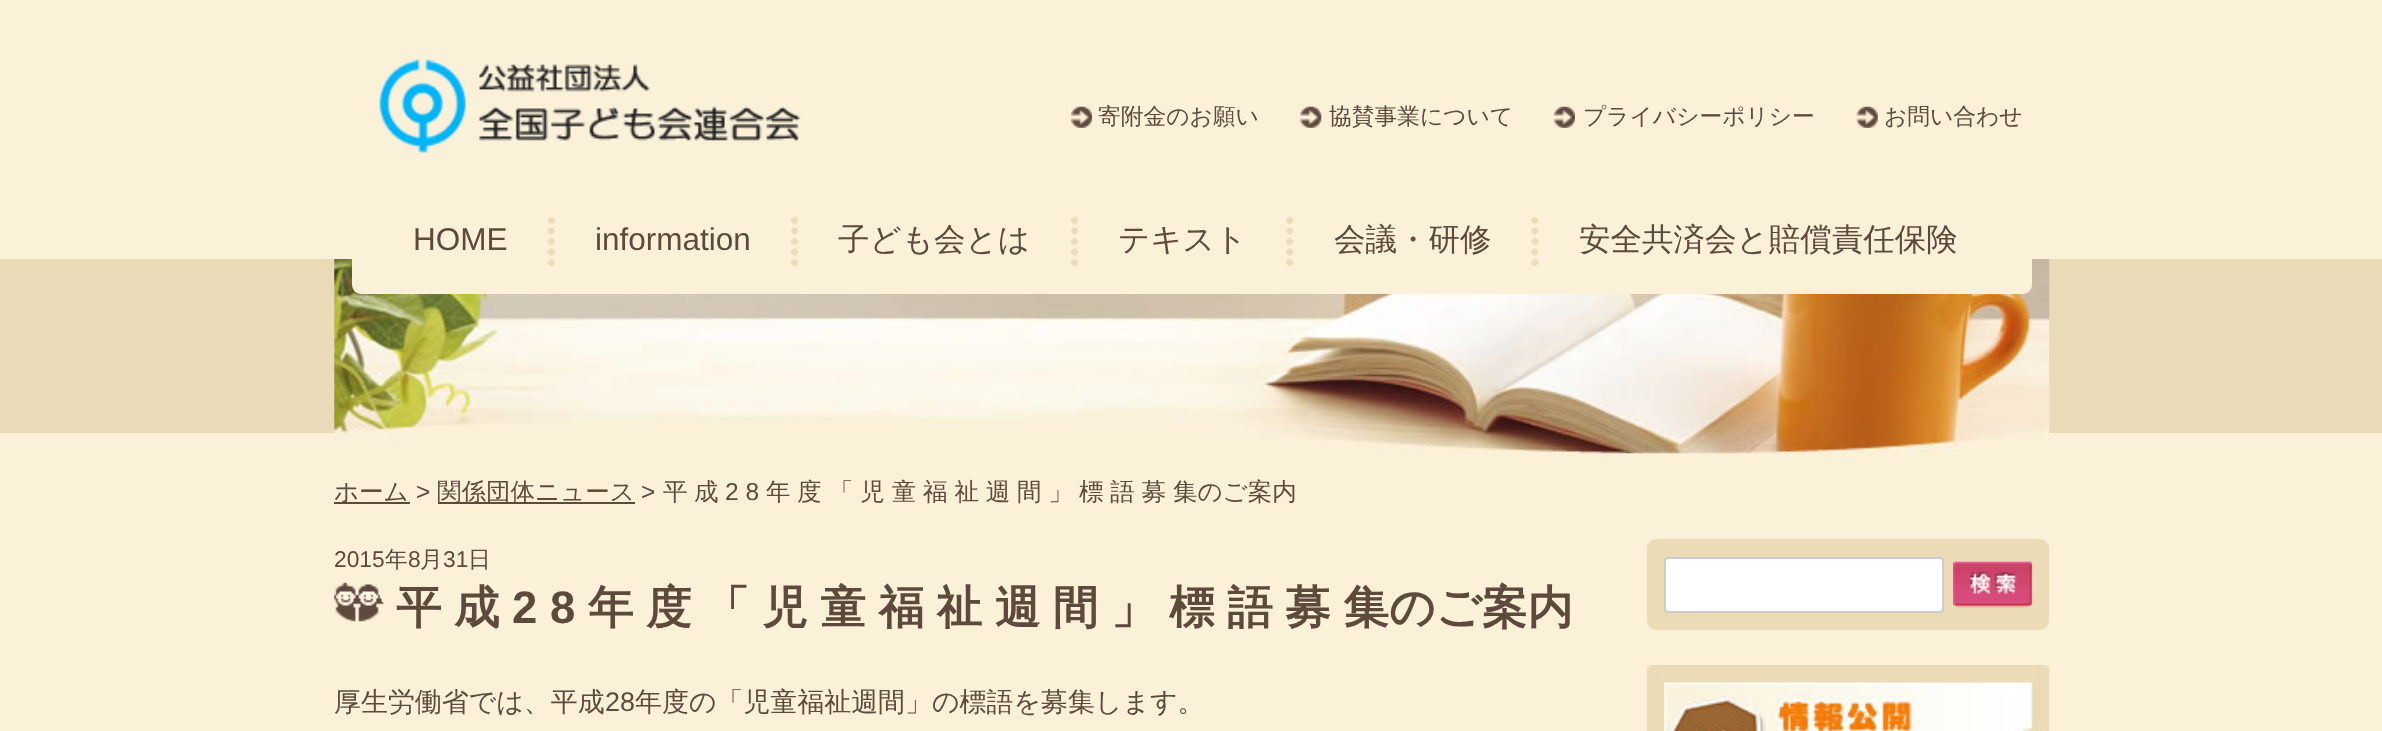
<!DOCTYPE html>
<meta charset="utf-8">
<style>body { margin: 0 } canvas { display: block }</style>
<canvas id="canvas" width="2382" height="731"></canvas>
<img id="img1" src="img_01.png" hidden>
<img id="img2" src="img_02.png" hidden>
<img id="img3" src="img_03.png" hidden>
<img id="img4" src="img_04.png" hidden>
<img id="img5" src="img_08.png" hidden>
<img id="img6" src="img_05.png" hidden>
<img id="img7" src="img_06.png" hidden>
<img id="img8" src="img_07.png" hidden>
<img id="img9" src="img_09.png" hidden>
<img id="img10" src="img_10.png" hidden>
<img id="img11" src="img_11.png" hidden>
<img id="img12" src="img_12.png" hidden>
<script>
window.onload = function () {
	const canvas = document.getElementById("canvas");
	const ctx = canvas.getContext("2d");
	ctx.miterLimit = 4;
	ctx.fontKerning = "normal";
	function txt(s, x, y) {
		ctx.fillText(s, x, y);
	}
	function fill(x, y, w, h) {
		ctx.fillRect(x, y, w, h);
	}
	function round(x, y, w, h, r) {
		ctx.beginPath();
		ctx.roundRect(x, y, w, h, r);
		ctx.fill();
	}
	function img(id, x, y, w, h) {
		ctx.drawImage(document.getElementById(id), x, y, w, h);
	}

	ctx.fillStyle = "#FBF1D9";
	fill(0, 0, 2382, 731);
	img("img1", 379, 59, 422, 94);
	img("img2", 1071, 106, 21, 22);
	img("img3", 1300, 106, 22, 22);
	img("img2", 1554, 106, 21, 22);
	img("img4", 1856, 106, 22, 22);
	ctx.fillStyle = "#EADBB8";
	fill(0, 259, 2382, 174);
	img("img5", 334, 259, 1716, 195);
	ctx.fillStyle = "#FBF1D9";
	round(352, 215, 1680, 79, 9);
	img("img6", 547, 216, 9, 50);
	img("img7", 791, 216, 8, 50);
	img("img7", 1071, 216, 8, 50);
	img("img8", 1286, 216, 8, 50);
	img("img8", 1531, 216, 8, 50);
	ctx.fillStyle = "#5E493D";
	fill(334, 502, 76, 2);
	fill(438, 502, 197, 2);
	img("img9", 334, 582, 50, 40);
	ctx.fillStyle = "#EBDBB7";
	round(1647, 539, 402, 91, 9);
	ctx.fillStyle = "#FFFFFF";
	ctx.beginPath();
	ctx.roundRect(1665, 558, 278, 54, 3);
	ctx.fill();
	ctx.strokeStyle = "#CCCCCC";
	ctx.lineWidth = 2;
	ctx.stroke();
	img("img10", 1953, 561, 79, 47);
	img("img11", 1646, 665, 404, 66);
	img("img12", 1664, 682, 378, 49);
	ctx.font = "500 22.75px WenQuanYi Zen Hei";
	ctx.fillStyle = "#5E493D";
	txt("寄附金のお願い", 1098, 124);
	txt("協賛事業について", 1329, 124);
	txt("プライバシーポリシー", 1583, 124);
	txt("お問い合わせ", 1884, 124);
	ctx.font = "31.5px Liberation Sans";
	txt("HOME", 413, 250);
	txt("information", 595, 250);
	ctx.font = "500 31.5px WenQuanYi Zen Hei";
	txt("子ども会とは", 838, 250);
	txt("テキスト", 1118, 250);
	txt("会議・研修", 1334, 250);
	txt("安全共済会と賠償責任保険", 1579, 250);
	ctx.font = "500 24.5px WenQuanYi Zen Hei";
	txt("ホーム", 334, 500);
	ctx.font = "24.5px Liberation Sans";
	txt(">", 416, 500);
	ctx.font = "500 24.5px WenQuanYi Zen Hei";
	txt("関係団体ニュース", 437, 500);
	ctx.font = "24.5px Liberation Sans";
	txt(">", 641, 500);
	ctx.font = "500 24.5px WenQuanYi Zen Hei";
	txt("平", 663, 500);
	txt("成", 694, 500);
	ctx.font = "24.5px Liberation Sans";
	txt("2 8", 725, 500);
	ctx.font = "500 24.5px WenQuanYi Zen Hei";
	txt("年", 766, 500);
	txt("度", 797, 500);
	ctx.wordSpacing = "-0.5px";
	txt("「 児 童 福 祉 週 間 」", 829, 500);
	txt("標 語 募 集のご案内", 1079, 500);
	ctx.wordSpacing = "0px";
	ctx.font = "22.75px Liberation Sans";
	txt("2015", 334, 567);
	ctx.font = "500 22.75px WenQuanYi Zen Hei";
	txt("年", 385, 567);
	ctx.font = "22.75px Liberation Sans";
	txt("8", 408, 567);
	ctx.font = "500 22.75px WenQuanYi Zen Hei";
	txt("月", 420, 567);
	ctx.font = "22.75px Liberation Sans";
	txt("31", 443, 567);
	ctx.font = "500 22.75px WenQuanYi Zen Hei";
	txt("日", 468, 567);
	ctx.font = "bold 45.5px WenQuanYi Zen Hei";
	txt("平", 396, 623);
	txt("成", 454, 623);
	ctx.font = "bold 45.5px Liberation Sans";
	txt("2 8", 512, 623);
	ctx.font = "bold 45.5px WenQuanYi Zen Hei";
	txt("年", 588, 623);
	txt("度", 646, 623);
	ctx.wordSpacing = "-1px";
	txt("「 児 童 福 祉 週 間 」", 704, 623);
	txt("標 語 募 集のご案内", 1169, 623);
	ctx.wordSpacing = "0px";
	ctx.font = "500 26.95px WenQuanYi Zen Hei";
	txt("厚生労働省では、平成", 334, 711);
	ctx.font = "26.95px Liberation Sans";
	txt("28", 605, 711);
	ctx.font = "500 26.95px WenQuanYi Zen Hei";
	txt("年度の「児童福祉週間」の標語を募集します。", 635, 711);
};
</script>
